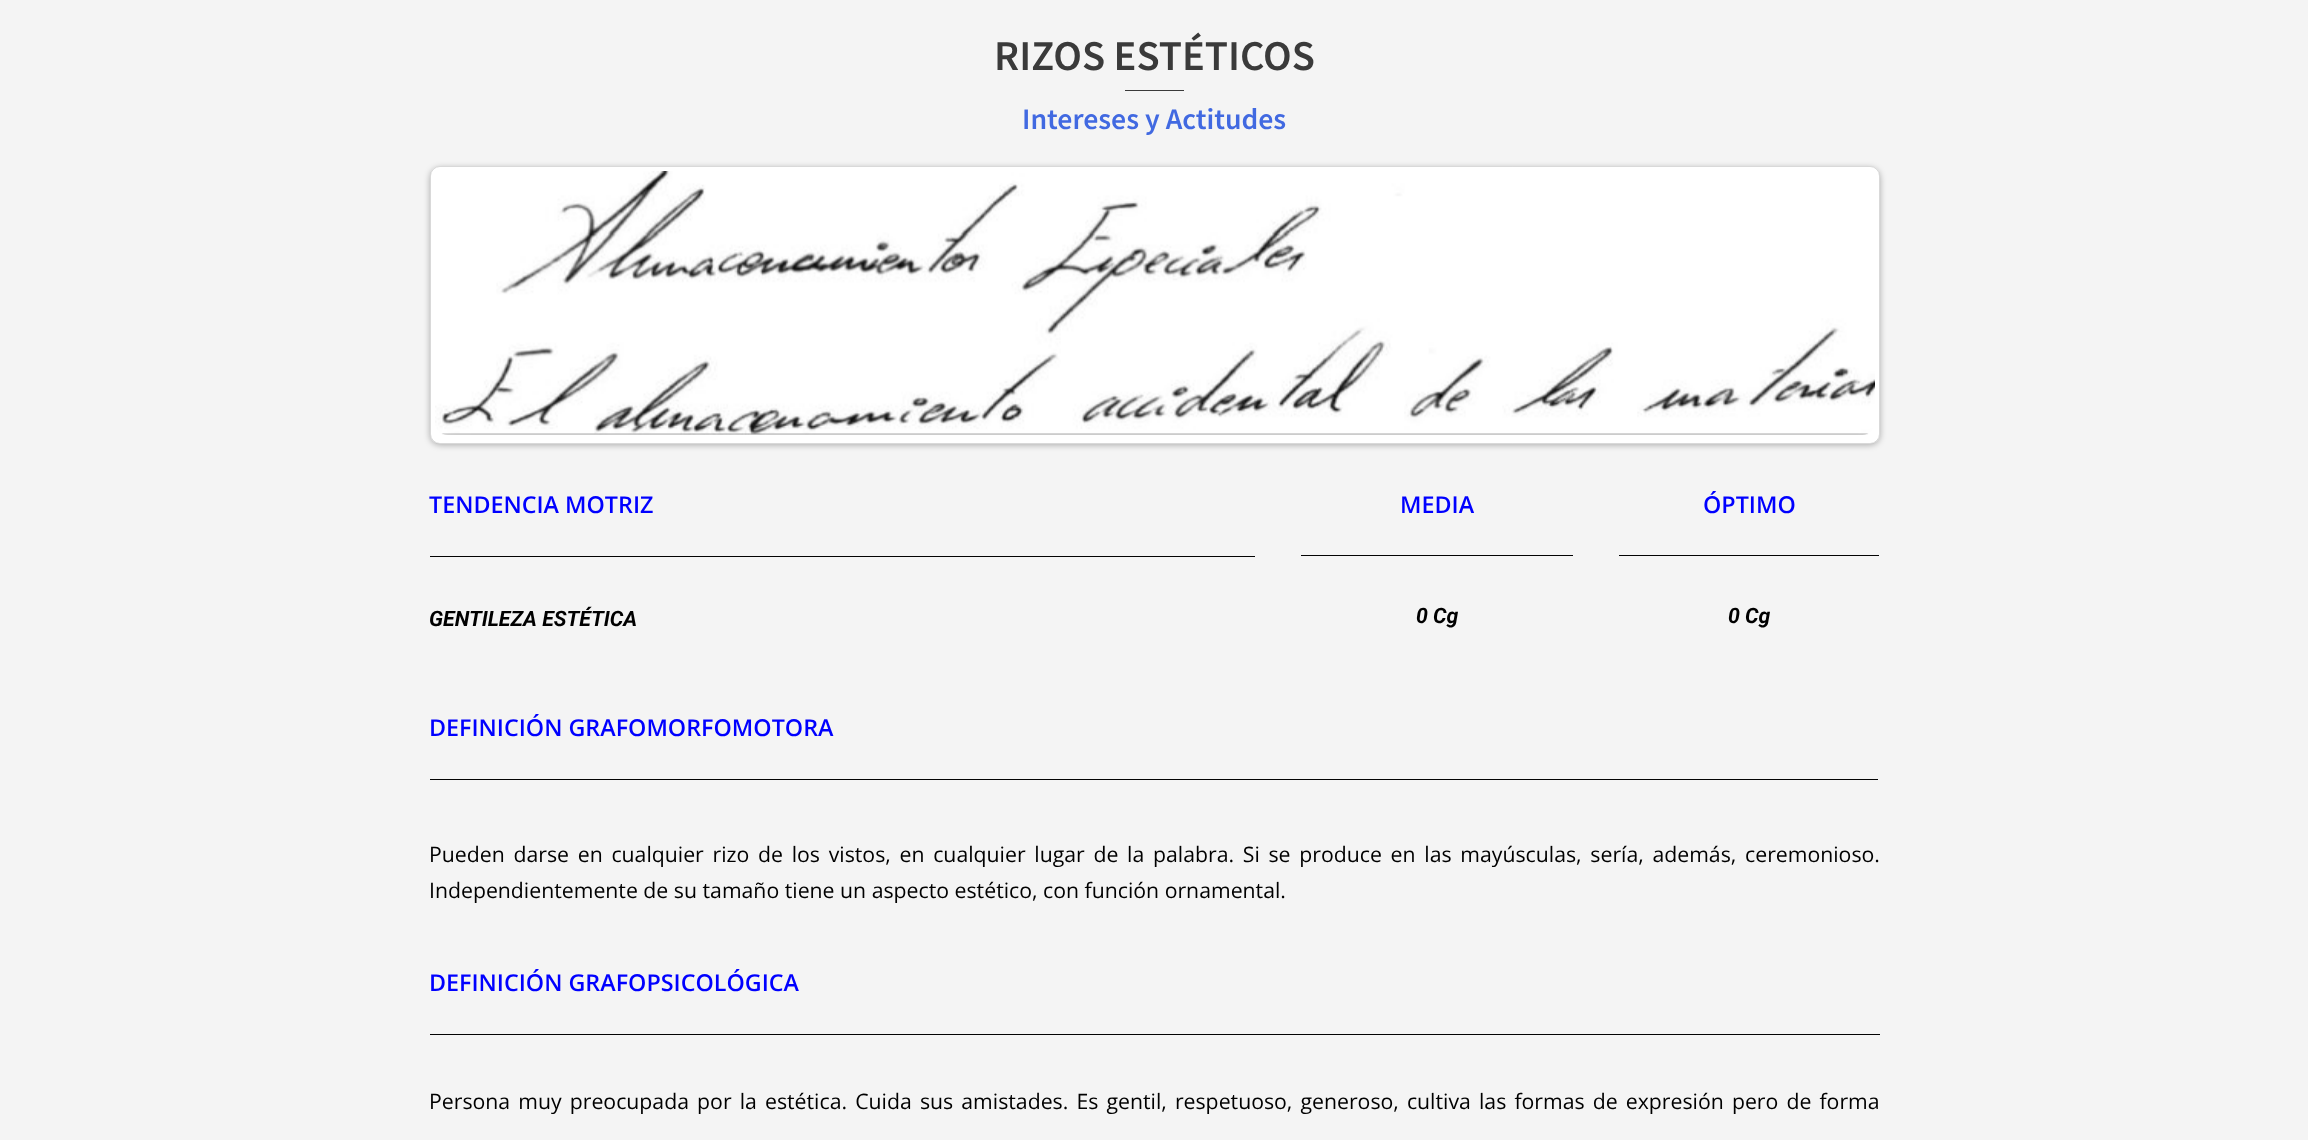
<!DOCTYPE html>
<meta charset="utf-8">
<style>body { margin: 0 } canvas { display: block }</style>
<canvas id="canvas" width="2308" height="1140"></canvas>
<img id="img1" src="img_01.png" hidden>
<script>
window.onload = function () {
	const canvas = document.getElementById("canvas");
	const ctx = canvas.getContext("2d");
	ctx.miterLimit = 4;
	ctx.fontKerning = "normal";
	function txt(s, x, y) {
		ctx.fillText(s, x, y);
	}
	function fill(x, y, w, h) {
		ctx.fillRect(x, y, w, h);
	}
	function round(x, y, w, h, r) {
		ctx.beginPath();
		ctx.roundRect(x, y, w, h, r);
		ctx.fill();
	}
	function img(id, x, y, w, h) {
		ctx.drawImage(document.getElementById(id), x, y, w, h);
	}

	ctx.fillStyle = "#F4F4F4";
	fill(0, 0, 2308, 1140);
	ctx.fillStyle = "#3A3A3A";
	fill(1125, 90, 59, 1);
	ctx.fillStyle = "rgba(0, 0, 0, 0.3)";
	ctx.filter = "blur(3px)";
	ctx.beginPath();
	ctx.roundRect(430, 168, 1450, 277, 10);
	ctx.fill();
	ctx.filter = "none";
	ctx.fillStyle = "#FFFFFF";
	round(430, 166, 1450, 278, 10);
	ctx.beginPath();
	ctx.roundRect(430.5, 166.5, 1449, 277, 9.5);
	ctx.strokeStyle = "rgba(0, 0, 0, 0.15)";
	ctx.stroke();
	img("img1", 435, 171, 1440, 264);
	ctx.fillStyle = "#030303";
	fill(430, 556, 825, 1);
	fill(1301, 555, 272, 1);
	fill(1619, 555, 260, 1);
	fill(430, 779, 1448, 1);
	fill(430, 1034, 1450, 1);
	ctx.font = "600 42.5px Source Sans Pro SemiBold";
	ctx.fillStyle = "#3A3A3A";
	txt("RIZOS ESTÉTICOS", 994, 70);
	ctx.font = "600 29.75px Source Sans Pro SemiBold";
	ctx.fillStyle = "#4169E1";
	txt("Intereses y Actitudes", 1022, 129);
	ctx.font = "600 23.3px Open Sans";
	ctx.fillStyle = "#0000FF";
	txt("TENDENCIA MOTRIZ", 429, 513);
	ctx.font = "italic bold 21.25px Roboto";
	ctx.fillStyle = "#000000";
	txt("GENTILEZA ESTÉTICA", 429, 626);
	ctx.font = "600 23.3px Open Sans";
	ctx.fillStyle = "#0000FF";
	txt("MEDIA", 1400, 513);
	ctx.font = "italic bold 21.25px Roboto";
	ctx.fillStyle = "#000000";
	txt("0 Cg", 1416, 623);
	ctx.font = "600 23.3px Open Sans";
	ctx.fillStyle = "#0000FF";
	txt("ÓPTIMO", 1703, 513);
	ctx.font = "italic bold 21.25px Roboto";
	ctx.fillStyle = "#000000";
	txt("0 Cg", 1728, 623);
	ctx.font = "600 23.3px Open Sans";
	ctx.fillStyle = "#0000FF";
	txt("DEFINICIÓN GRAFOMORFOMOTORA", 429, 736);
	ctx.wordSpacing = "3.2px";
	ctx.font = "21.25px Open Sans";
	ctx.fillStyle = "#000000";
	txt("Pueden darse en cualquier rizo de los vistos, en cualquier lugar de la palabra. Si se produce en las mayúsculas, sería, además, ceremonioso.", 429, 862);
	ctx.wordSpacing = "0px";
	txt("Independientemente de su tamaño tiene un aspecto estético, con función ornamental.", 429, 898);
	ctx.font = "600 23.3px Open Sans";
	ctx.fillStyle = "#0000FF";
	txt("DEFINICIÓN GRAFOPSICOLÓGICA", 429, 991);
	ctx.wordSpacing = "2.6px";
	ctx.font = "21.25px Open Sans";
	ctx.fillStyle = "#000000";
	txt("Persona muy preocupada por la estética. Cuida sus amistades. Es gentil, respetuoso, generoso, cultiva las formas de expresión pero de forma", 429, 1109);
};
</script>
